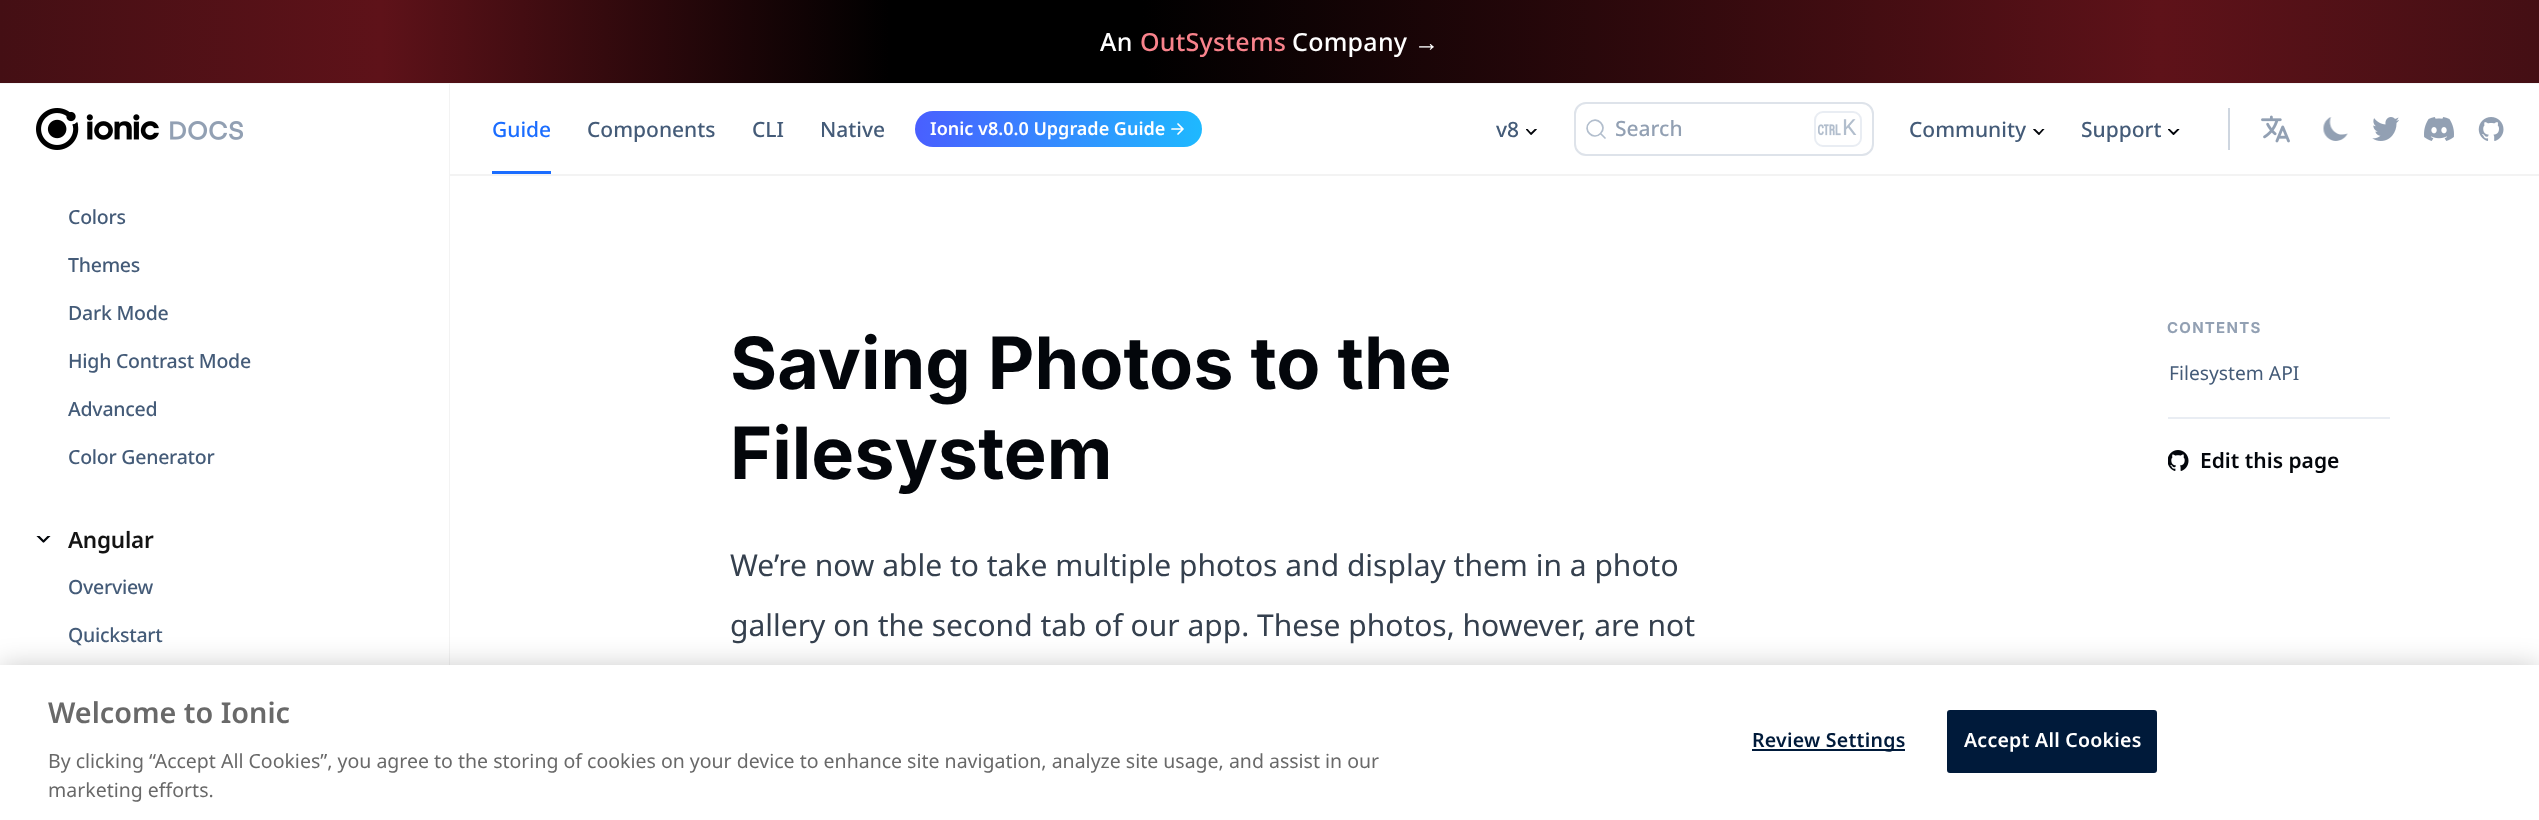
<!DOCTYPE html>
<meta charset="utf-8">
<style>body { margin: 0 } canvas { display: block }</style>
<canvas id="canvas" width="2539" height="820"></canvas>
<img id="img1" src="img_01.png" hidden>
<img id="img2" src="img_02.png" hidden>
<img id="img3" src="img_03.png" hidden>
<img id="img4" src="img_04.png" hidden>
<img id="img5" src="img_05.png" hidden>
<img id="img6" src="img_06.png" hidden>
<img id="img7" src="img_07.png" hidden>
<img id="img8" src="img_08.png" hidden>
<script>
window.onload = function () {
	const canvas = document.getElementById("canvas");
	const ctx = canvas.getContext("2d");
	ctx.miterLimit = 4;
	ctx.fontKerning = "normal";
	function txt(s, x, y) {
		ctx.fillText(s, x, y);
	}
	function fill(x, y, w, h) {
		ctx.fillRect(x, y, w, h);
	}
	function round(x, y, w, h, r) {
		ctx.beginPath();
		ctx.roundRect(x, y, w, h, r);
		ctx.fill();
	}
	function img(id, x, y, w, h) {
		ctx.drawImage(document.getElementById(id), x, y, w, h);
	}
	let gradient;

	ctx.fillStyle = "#FFFFFF";
	fill(0, 0, 2539, 820);
	gradient = ctx.createLinearGradient(0, 41, 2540, 41);
	gradient.addColorStop(0, "#440F14");
	gradient.addColorStop(0.15, "#5E1219");
	gradient.addColorStop(0.35, "#000000");
	gradient.addColorStop(0.45, "#000000");
	gradient.addColorStop(0.85, "#5E1219");
	gradient.addColorStop(1, "#440F14");
	ctx.fillStyle = gradient;
	fill(0, 0, 2539, 83);
	ctx.fillStyle = "#F5F6F7";
	fill(0, 83, 2539, 1);
	ctx.fillStyle = "#F3F3F3";
	fill(449, 84, 1, 581);
	img("img1", 36, 108, 207, 42);
	ctx.save();
	ctx.beginPath();
	ctx.rect(36, 536, 15, 9);
	ctx.clip();
	ctx.beginPath();
	ctx.moveTo(37.5, 535.5);
	ctx.lineTo(43.5, 541.5);
	ctx.lineTo(49.5, 535.5);
	ctx.strokeStyle = "#03060B";
	ctx.lineWidth = 2.2;
	ctx.lineCap = "round";
	ctx.lineJoin = "round";
	ctx.stroke();
	ctx.restore();
	ctx.beginPath();
	ctx.moveTo(450, 174);
	ctx.lineTo(450, 176);
	ctx.lineTo(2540, 176);
	ctx.lineTo(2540, 86);
	ctx.lineTo(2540, 174);
	ctx.closePath();
	ctx.fill();
	ctx.fillStyle = "#1B6DFF";
	fill(492, 171, 59, 3);
	gradient = ctx.createLinearGradient(915, 129, 1244, 129);
	gradient.addColorStop(0, "#495FFF");
	gradient.addColorStop(1, "#18C6FF");
	ctx.fillStyle = gradient;
	round(915, 111, 287, 36, 18);
	ctx.beginPath();
	ctx.moveTo(1178, 124);
	ctx.lineTo(1183, 129);
	ctx.lineTo(1178, 134);
	ctx.moveTo(1182.5, 129);
	ctx.lineTo(1172, 129);
	ctx.strokeStyle = "#FFFFFF";
	ctx.lineWidth = 1.7;
	ctx.lineCap = "round";
	ctx.lineJoin = "round";
	ctx.stroke();
	ctx.save();
	ctx.beginPath();
	ctx.rect(1526, 129, 12, 6);
	ctx.clip();
	ctx.beginPath();
	ctx.moveTo(1526.5, 129);
	ctx.lineTo(1531, 134);
	ctx.lineTo(1536, 129);
	ctx.strokeStyle = "#03060B";
	ctx.lineWidth = 1.8;
	ctx.stroke();
	ctx.restore();
	ctx.beginPath();
	ctx.roundRect(1575, 103, 298, 52, 11);
	ctx.strokeStyle = "#DEE3EA";
	ctx.lineWidth = 2;
	ctx.lineJoin = "miter";
	ctx.stroke();
	ctx.beginPath();
	ctx.moveTo(1600.5, 133.5);
	ctx.lineTo(1605, 138);
	ctx.lineTo(1600.5, 133.5);
	ctx.bezierCurveTo(1593.5, 141, 1582, 130, 1589.5, 122.5);
	ctx.bezierCurveTo(1597, 115, 1608, 126.5, 1600.5, 133.5);
	ctx.closePath();
	ctx.strokeStyle = "#B2BECD";
	ctx.lineWidth = 1.7;
	ctx.lineJoin = "round";
	ctx.stroke();
	ctx.beginPath();
	ctx.roundRect(1815, 112, 46, 34, 8);
	ctx.strokeStyle = "#E9EDF3";
	ctx.lineWidth = 2;
	ctx.lineJoin = "miter";
	ctx.stroke();
	img("img2", 1818, 124, 23, 12);
	ctx.save();
	ctx.beginPath();
	ctx.rect(2033, 129, 12, 6);
	ctx.clip();
	ctx.beginPath();
	ctx.moveTo(2034, 129);
	ctx.lineTo(2039, 134);
	ctx.lineTo(2043.5, 129);
	ctx.strokeStyle = "#03060B";
	ctx.lineWidth = 1.8;
	ctx.lineJoin = "round";
	ctx.stroke();
	ctx.restore();
	ctx.save();
	ctx.beginPath();
	ctx.rect(2168, 129, 12, 6);
	ctx.clip();
	ctx.beginPath();
	ctx.moveTo(2168.5, 129);
	ctx.lineTo(2173.5, 134);
	ctx.lineTo(2178.5, 129);
	ctx.strokeStyle = "#03060B";
	ctx.lineWidth = 1.8;
	ctx.lineJoin = "round";
	ctx.stroke();
	ctx.restore();
	ctx.fillStyle = "#CED6E0";
	fill(2228, 108, 2, 42);
	img("img3", 2261, 115, 29, 28);
	img("img4", 2323, 117, 25, 24);
	img("img5", 2372, 117, 27, 24);
	img("img6", 2424, 117, 30, 24);
	img("img7", 2478, 117, 26, 24);
	ctx.fillStyle = "#E9EDF3";
	fill(2168, 417, 222, 2);
	img("img8", 2168, 450, 21, 21);
	ctx.fillStyle = "rgba(0, 0, 0, 0.2)";
	ctx.filter = "blur(13.5px)";
	ctx.beginPath();
	ctx.rect(0, 665, 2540, 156);
	ctx.fill();
	ctx.filter = "none";
	ctx.fillStyle = "#FFFFFF";
	fill(0, 665, 2539, 155);
	ctx.fillStyle = "#001A3A";
	fill(1752, 749, 153, 2);
	ctx.beginPath();
	ctx.roundRect(1948, 711, 208, 61, 2);
	ctx.fill();
	ctx.strokeStyle = "#001A3A";
	ctx.stroke();
	ctx.letterSpacing = "0.25px";
	ctx.font = "500 25px Noto Sans";
	ctx.fillStyle = "#FFFFFF";
	txt("An", 1100, 51);
	ctx.fillStyle = "#F9838C";
	txt("OutSystems", 1140, 51);
	ctx.fillStyle = "#FFFFFF";
	txt("Company", 1292, 51);
	ctx.font = "25px Liberation Sans";
	txt("→", 1414, 51);
	ctx.letterSpacing = "-0.25px";
	ctx.font = "500 19.5px Noto Sans";
	ctx.fillStyle = "#445B78";
	txt("Colors", 68, 224);
	txt("Themes", 68, 272);
	txt("Dark Mode", 68, 320);
	txt("High Contrast Mode", 68, 368);
	txt("Advanced", 68, 416);
	txt("Color Generator", 68, 464);
	ctx.font = "600 22.5px Noto Sans";
	ctx.fillStyle = "#141414";
	txt("Angular", 68, 548);
	ctx.font = "500 19.5px Noto Sans";
	ctx.fillStyle = "#445B78";
	txt("Overview", 68, 594);
	txt("Quickstart", 68, 642);
	ctx.letterSpacing = "0px";
	ctx.font = "500 21px Noto Sans";
	ctx.fillStyle = "#1B6DFF";
	txt("Guide", 492, 137);
	ctx.fillStyle = "#445B78";
	txt("Components", 587, 137);
	txt("CLI", 752, 137);
	txt("Native", 820, 137);
	ctx.font = "600 18px Noto Sans";
	ctx.fillStyle = "#FFFFFF";
	txt("Ionic v8.0.0 Upgrade Guide", 930, 135);
	ctx.font = "500 21px Noto Sans";
	ctx.fillStyle = "#445B78";
	txt("v8", 1496, 137);
	ctx.fillStyle = "#92A0B3";
	txt("Search", 1615, 136);
	ctx.font = "24px Liberation Mono";
	ctx.fillStyle = "#B2BECD";
	txt("K", 1842, 135);
	ctx.font = "500 21px Noto Sans";
	ctx.fillStyle = "#445B78";
	txt("Community", 1909, 137);
	txt("Support", 2081, 137);
	ctx.font = "bold 72px Inter";
	ctx.fillStyle = "#03060B";
	txt("Saving Photos to the", 730, 389);
	txt("Filesystem", 730, 479);
	ctx.font = "30px Noto Sans";
	ctx.fillStyle = "#35404E";
	txt("We’re now able to take multiple photos and display them in a photo", 730, 576);
	txt("gallery on the second tab of our app. These photos, however, are not", 730, 636);
	ctx.letterSpacing = "1.25px";
	ctx.font = "bold 15px Inter";
	ctx.fillStyle = "#92A0B3";
	txt("CONTENTS", 2167, 333);
	ctx.letterSpacing = "0px";
	ctx.font = "19.25px Noto Sans";
	ctx.fillStyle = "#445B78";
	txt("Filesystem API", 2169, 380);
	ctx.font = "600 21px Noto Sans";
	ctx.fillStyle = "#03060B";
	txt("Edit this page", 2200, 468);
	ctx.font = "600 28.75px Noto Sans";
	ctx.fillStyle = "#696969";
	txt("Welcome to Ionic", 48, 723);
	ctx.font = "19.5px Noto Sans";
	txt("By clicking “Accept All Cookies”, you agree to the storing of cookies on your device to enhance site navigation, analyze site usage, and assist in our", 48, 768);
	txt("marketing efforts.", 48, 797);
	ctx.letterSpacing = "0.25px";
	ctx.font = "600 19.5px Noto Sans";
	ctx.fillStyle = "#001A3A";
	txt("Review Settings", 1752, 747);
	ctx.fillStyle = "#FFFFFF";
	txt("Accept All Cookies", 1964, 747);
};
</script>
